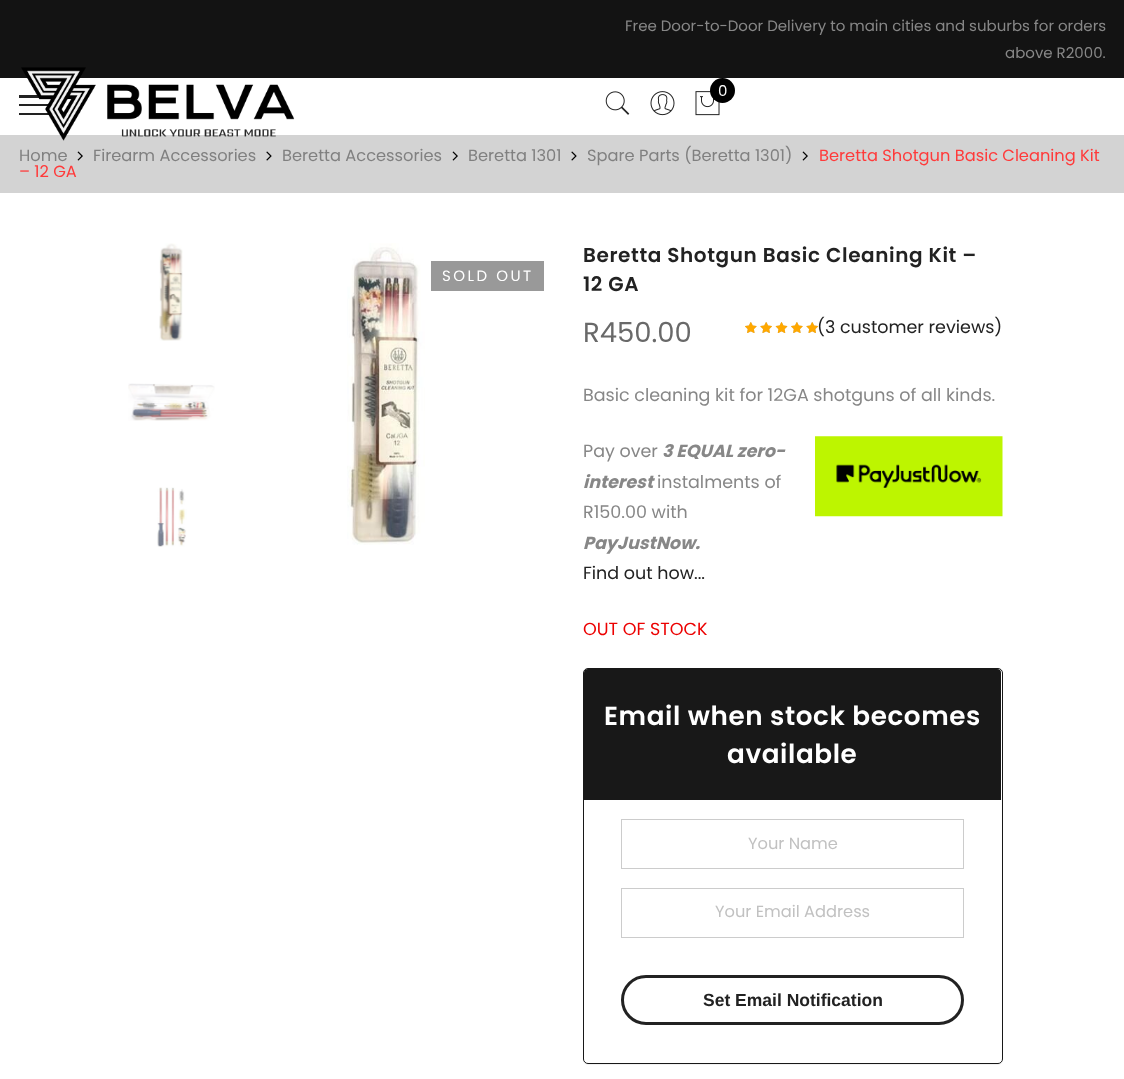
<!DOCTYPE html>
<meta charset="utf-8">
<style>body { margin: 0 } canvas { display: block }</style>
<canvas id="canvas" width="1124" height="1079"></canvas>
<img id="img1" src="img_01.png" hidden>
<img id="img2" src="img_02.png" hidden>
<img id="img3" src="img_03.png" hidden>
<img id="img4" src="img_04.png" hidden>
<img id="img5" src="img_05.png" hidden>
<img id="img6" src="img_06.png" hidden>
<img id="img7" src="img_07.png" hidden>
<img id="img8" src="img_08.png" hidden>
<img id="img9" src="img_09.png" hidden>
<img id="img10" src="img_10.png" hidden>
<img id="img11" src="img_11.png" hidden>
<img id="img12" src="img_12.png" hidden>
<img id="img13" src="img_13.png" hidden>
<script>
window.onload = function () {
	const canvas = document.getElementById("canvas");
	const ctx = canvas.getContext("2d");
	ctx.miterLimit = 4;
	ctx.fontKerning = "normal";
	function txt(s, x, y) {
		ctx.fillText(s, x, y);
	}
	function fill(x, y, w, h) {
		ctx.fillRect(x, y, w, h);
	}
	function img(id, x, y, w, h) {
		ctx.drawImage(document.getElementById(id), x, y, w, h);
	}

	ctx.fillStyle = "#FFFFFF";
	fill(0, 0, 1124, 1079);
	ctx.fillStyle = "#131313";
	fill(0, 0, 1124, 78);
	ctx.fillStyle = "#222222";
	fill(19, 95, 25, 3);
	fill(19, 104, 37, 2);
	fill(19, 113, 31, 2);
	ctx.fillStyle = "#D3D3D3";
	fill(0, 135, 1124, 58);
	img("img1", 21, 67, 274, 74);
	img("img2", 605, 91, 25, 24);
	img("img3", 650, 91, 25, 25);
	img("img4", 695, 91, 25, 25);
	ctx.fillStyle = "#000000";
	ctx.beginPath();
	ctx.arc(722.5, 90.5, 12.5, 0, Math.PI * 2);
	ctx.fill();
	img("img5", 77, 151, 6, 10);
	img("img6", 266, 151, 6, 10);
	img("img5", 452, 151, 6, 10);
	img("img6", 571, 151, 6, 10);
	img("img5", 802, 151, 6, 10);
	img("img7", 159, 243, 24, 98);
	img("img8", 128, 383, 87, 38);
	img("img9", 157, 487, 30, 60);
	img("img10", 347, 243, 78, 302);
	ctx.fillStyle = "#999999";
	fill(431, 261, 113, 30);
	img("img11", 745, 322, 73, 11);
	img("img12", 745, 322, 73, 11);
	img("img13", 815, 436, 188, 81);
	ctx.save();
	ctx.beginPath();
	ctx.moveTo(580, 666);
	ctx.lineTo(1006, 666);
	ctx.lineTo(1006, 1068);
	ctx.lineTo(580, 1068);
	ctx.closePath();
	ctx.moveTo(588, 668);
	ctx.lineTo(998, 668);
	ctx.bezierCurveTo(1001, 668, 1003, 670, 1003, 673);
	ctx.lineTo(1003, 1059);
	ctx.bezierCurveTo(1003, 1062, 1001, 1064, 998, 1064);
	ctx.lineTo(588, 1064);
	ctx.bezierCurveTo(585, 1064, 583, 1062, 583, 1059);
	ctx.lineTo(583, 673);
	ctx.bezierCurveTo(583, 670, 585, 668, 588, 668);
	ctx.closePath();
	ctx.clip("evenodd");
	ctx.fillStyle = "rgba(0, 0, 0, 0.05)";
	ctx.filter = "blur(0.5px)";
	ctx.beginPath();
	ctx.roundRect(583, 669, 420, 396, 5);
	ctx.fill();
	ctx.filter = "none";
	ctx.restore();
	ctx.beginPath();
	ctx.roundRect(583.5, 668.5, 419, 395, 4.5);
	ctx.strokeStyle = "#181818";
	ctx.stroke();
	ctx.fillStyle = "#181818";
	ctx.beginPath();
	ctx.roundRect(584, 669, 417, 131, [4, 4, 0, 0]);
	ctx.fill();
	ctx.strokeStyle = "#CCCCCC";
	ctx.strokeRect(621.5, 819.5, 342, 49);
	ctx.strokeRect(621.5, 888.5, 342, 49);
	ctx.beginPath();
	ctx.roundRect(622.5, 976.5, 340, 47, 23.5);
	ctx.strokeStyle = "#222222";
	ctx.lineWidth = 3;
	ctx.stroke();
	ctx.font = "15px Poppins";
	ctx.fillStyle = "#878787";
	txt("Free Door-to-Door Delivery to main cities and suburbs for orders", 625, 31);
	txt("above R2000.", 1005, 58);
	ctx.fillStyle = "#FFFFFF";
	txt("0", 718, 96);
	ctx.font = "16.25px Poppins";
	ctx.fillStyle = "#808080";
	txt("Home", 19, 161);
	txt("Firearm Accessories", 93, 161);
	txt("Beretta Accessories", 282, 161);
	txt("Beretta 1301", 468, 161);
	txt("Spare Parts (Beretta 1301)", 587, 161);
	ctx.fillStyle = "#FF3A3A";
	txt("Beretta Shotgun Basic Cleaning Kit", 819, 161);
	txt("– 12 GA", 19, 177);
	ctx.letterSpacing = "2.5px";
	ctx.font = "15px Poppins";
	ctx.fillStyle = "#FFFFFF";
	txt("SOLD OUT", 442, 281);
	ctx.letterSpacing = "0.6px";
	ctx.font = "600 20px Poppins";
	ctx.fillStyle = "#222222";
	txt("Beretta Shotgun Basic Cleaning Kit –", 583, 262);
	txt("12 GA", 583, 291);
	ctx.letterSpacing = "0px";
	ctx.font = "27.5px Poppins";
	ctx.fillStyle = "#696969";
	txt("R450.00", 583, 342);
	ctx.font = "17.5px Poppins";
	ctx.fillStyle = "#222222";
	txt("(3 customer reviews)", 817, 333);
	ctx.fillStyle = "#878787";
	txt("Basic cleaning kit for 12GA shotguns of all kinds.", 583, 401);
	txt("Pay over", 583, 457);
	ctx.font = "italic bold 17.5px Poppins";
	txt("3 EQUAL zero-", 662, 457);
	txt("interest", 583, 488);
	ctx.font = "17.5px Poppins";
	txt("instalments of", 657, 488);
	txt("R150.00 with", 583, 518);
	ctx.font = "italic bold 17.5px Poppins";
	txt("PayJustNow.", 583, 549);
	ctx.font = "17.5px Poppins";
	ctx.fillStyle = "#222222";
	txt("Find out how...", 583, 579);
	ctx.fillStyle = "#EC0101";
	txt("OUT OF STOCK", 583, 635);
	ctx.letterSpacing = "0.6px";
	ctx.font = "600 26.25px Poppins";
	ctx.fillStyle = "#FFFFFF";
	txt("Email when stock becomes", 604, 725);
	txt("available", 727, 763);
	ctx.letterSpacing = "0px";
	ctx.font = "16.25px Poppins";
	ctx.fillStyle = "#C1C1C1";
	txt("Your Name", 748, 849);
	txt("Your Email Address", 715, 917);
	ctx.font = "bold 17.5px Liberation Sans";
	ctx.fillStyle = "#222222";
	txt("Set Email Notification", 703, 1006);
};
</script>
